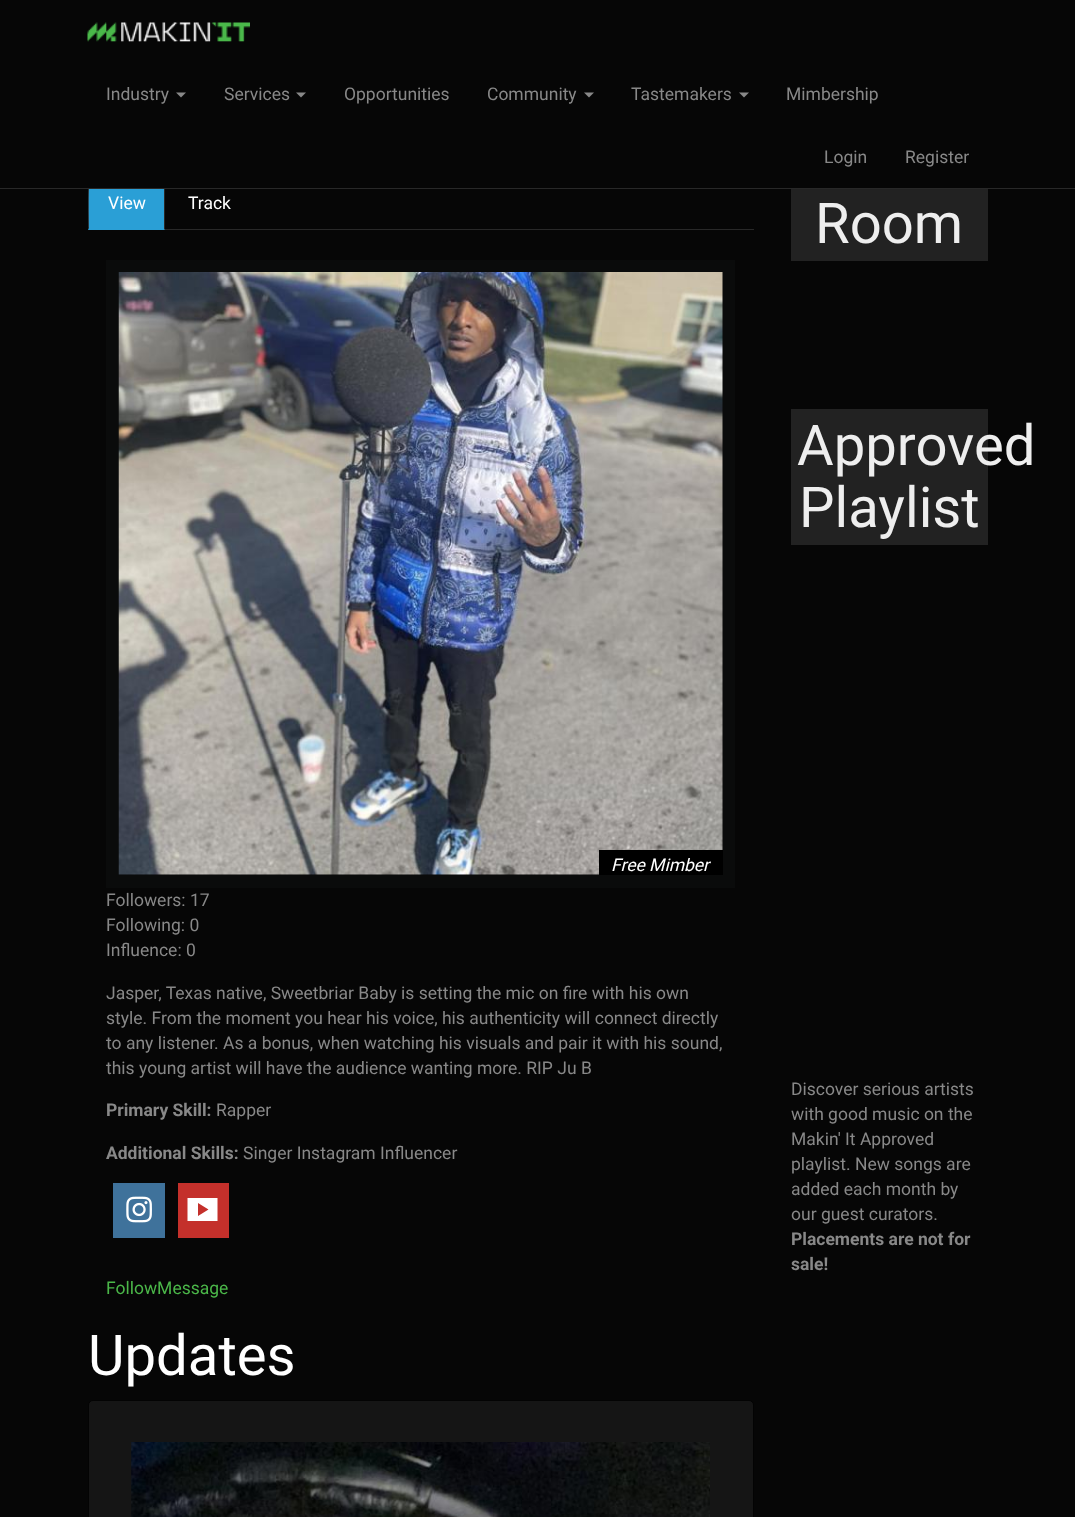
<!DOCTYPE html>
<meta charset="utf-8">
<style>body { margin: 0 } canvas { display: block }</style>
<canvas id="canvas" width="1075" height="1517"></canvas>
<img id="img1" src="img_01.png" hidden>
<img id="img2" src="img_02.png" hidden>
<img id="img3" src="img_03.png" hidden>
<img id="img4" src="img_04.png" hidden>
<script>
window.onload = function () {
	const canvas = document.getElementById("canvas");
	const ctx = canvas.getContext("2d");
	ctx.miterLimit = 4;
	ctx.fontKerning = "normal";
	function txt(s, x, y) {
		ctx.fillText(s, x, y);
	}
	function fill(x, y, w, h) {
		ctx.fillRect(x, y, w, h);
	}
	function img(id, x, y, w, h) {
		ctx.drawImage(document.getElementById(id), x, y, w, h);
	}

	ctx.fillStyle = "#060606";
	fill(0, 0, 1075, 1517);
	ctx.fillStyle = "#2A9FD6";
	fill(88, 189, 77, 41);
	ctx.fillStyle = "#282828";
	ctx.beginPath();
	ctx.moveTo(165, 230);
	ctx.lineTo(165, 181);
	ctx.lineTo(163, 179);
	ctx.lineTo(163, 180);
	ctx.lineTo(164, 181);
	ctx.lineTo(164, 229);
	ctx.closePath();
	ctx.fill();
	ctx.beginPath();
	ctx.moveTo(89, 179);
	ctx.lineTo(88, 181);
	ctx.lineTo(88, 230);
	ctx.lineTo(89, 228);
	ctx.bezierCurveTo(89, 223, 88, 182, 90, 180);
	ctx.closePath();
	ctx.fill();
	ctx.fillStyle = "#060606";
	fill(88, 179, 77, 9);
	ctx.fillStyle = "#282828";
	fill(0, 188, 1075, 1);
	img("img1", 87, 22, 163, 20);
	ctx.fillStyle = "#888888";
	ctx.beginPath();
	ctx.moveTo(176, 92.5);
	ctx.lineTo(186, 92.5);
	ctx.lineTo(181, 97.5);
	ctx.closePath();
	ctx.fill();
	ctx.beginPath();
	ctx.moveTo(296, 92.5);
	ctx.lineTo(306, 92.5);
	ctx.lineTo(301, 97.5);
	ctx.closePath();
	ctx.fill();
	ctx.beginPath();
	ctx.moveTo(584, 92.5);
	ctx.lineTo(594, 92.5);
	ctx.lineTo(589, 97.5);
	ctx.closePath();
	ctx.fill();
	ctx.beginPath();
	ctx.moveTo(739, 92.5);
	ctx.lineTo(749, 92.5);
	ctx.lineTo(744, 97.5);
	ctx.closePath();
	ctx.fill();
	ctx.fillStyle = "#282828";
	fill(165, 229, 589, 1);
	ctx.strokeStyle = "#0A0B0B";
	ctx.lineWidth = 13;
	ctx.strokeRect(112.5, 266.5, 616, 615);
	img("img2", 118, 272, 605, 603);
	ctx.fillStyle = "#000000";
	fill(599, 850, 124, 25);
	ctx.fillStyle = "#3F729B";
	fill(113, 1183, 52, 55);
	img("img3", 126, 1196, 26, 27);
	ctx.fillStyle = "#C4302B";
	fill(178, 1183, 51, 55);
	ctx.fillStyle = "#FFFFFF";
	ctx.beginPath();
	ctx.moveTo(187.5, 1221);
	ctx.lineTo(187.5, 1198);
	ctx.lineTo(217.5, 1198);
	ctx.lineTo(217.5, 1221);
	ctx.closePath();
	ctx.moveTo(198, 1216);
	ctx.lineTo(208.5, 1209.5);
	ctx.lineTo(198, 1203);
	ctx.closePath();
	ctx.fill();
	ctx.fillStyle = "#151515";
	ctx.beginPath();
	ctx.roundRect(88.5, 1400.5, 665, 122, 4.5);
	ctx.fill();
	ctx.strokeStyle = "#030303";
	ctx.lineWidth = 1;
	ctx.stroke();
	img("img4", 131, 1442, 579, 75);
	ctx.fillStyle = "#222222";
	fill(791, 189, 197, 72);
	fill(791, 409, 197, 136);
	ctx.font = "17.5px Roboto";
	ctx.fillStyle = "#888888";
	txt("Industry", 106, 100);
	txt("Services", 224, 100);
	txt("Opportunities", 344, 100);
	txt("Community", 487, 100);
	txt("Tastemakers", 631, 100);
	txt("Mimbership", 786, 100);
	txt("Login", 824, 163);
	txt("Register", 905, 163);
	ctx.fillStyle = "#FFFFFF";
	txt("View", 108, 209);
	txt("Track", 188, 209);
	ctx.font = "italic 17.5px Roboto";
	txt("Free Mimber", 611, 871);
	ctx.font = "17.5px Roboto";
	ctx.fillStyle = "#888888";
	txt("Followers: 17", 106, 906);
	txt("Following: 0", 106, 931);
	txt("Influence: 0", 106, 956);
	txt("Jasper, Texas native, Sweetbriar Baby is setting the mic on fire with his own", 106, 999);
	txt("style. From the moment you hear his voice, his authenticity will connect directly", 106, 1024);
	txt("to any listener. As a bonus, when watching his visuals and pair it with his sound,", 106, 1049);
	txt("this young artist will have the audience wanting more. RIP Ju B", 106, 1074);
	ctx.font = "bold 17.5px Roboto";
	txt("Primary Skill:", 106, 1116);
	ctx.font = "17.5px Roboto";
	txt("Rapper", 216, 1116);
	ctx.font = "bold 17.5px Roboto";
	txt("Additional Skills:", 106, 1159);
	ctx.font = "17.5px Roboto";
	txt("Singer Instagram Influencer", 243, 1159);
	ctx.fillStyle = "#4BB749";
	txt("FollowMessage", 106, 1294);
	ctx.font = "56.25px Roboto";
	ctx.fillStyle = "#FFFFFF";
	txt("Updates", 88, 1375);
	ctx.fillStyle = "#EEEEEE";
	txt("Room", 815, 243);
	txt("Approved", 797, 465);
	txt("Playlist", 799, 527);
	ctx.font = "17.5px Roboto";
	ctx.fillStyle = "#888888";
	txt("Discover serious artists", 791, 1095);
	txt("with good music on the", 791, 1120);
	txt("Makin' It Approved", 791, 1145);
	txt("playlist. New songs are", 791, 1170);
	txt("added each month by", 791, 1195);
	txt("our guest curators.", 791, 1220);
	ctx.font = "bold 17.5px Roboto";
	txt("Placements are not for", 791, 1245);
	txt("sale!", 791, 1270);
};
</script>
